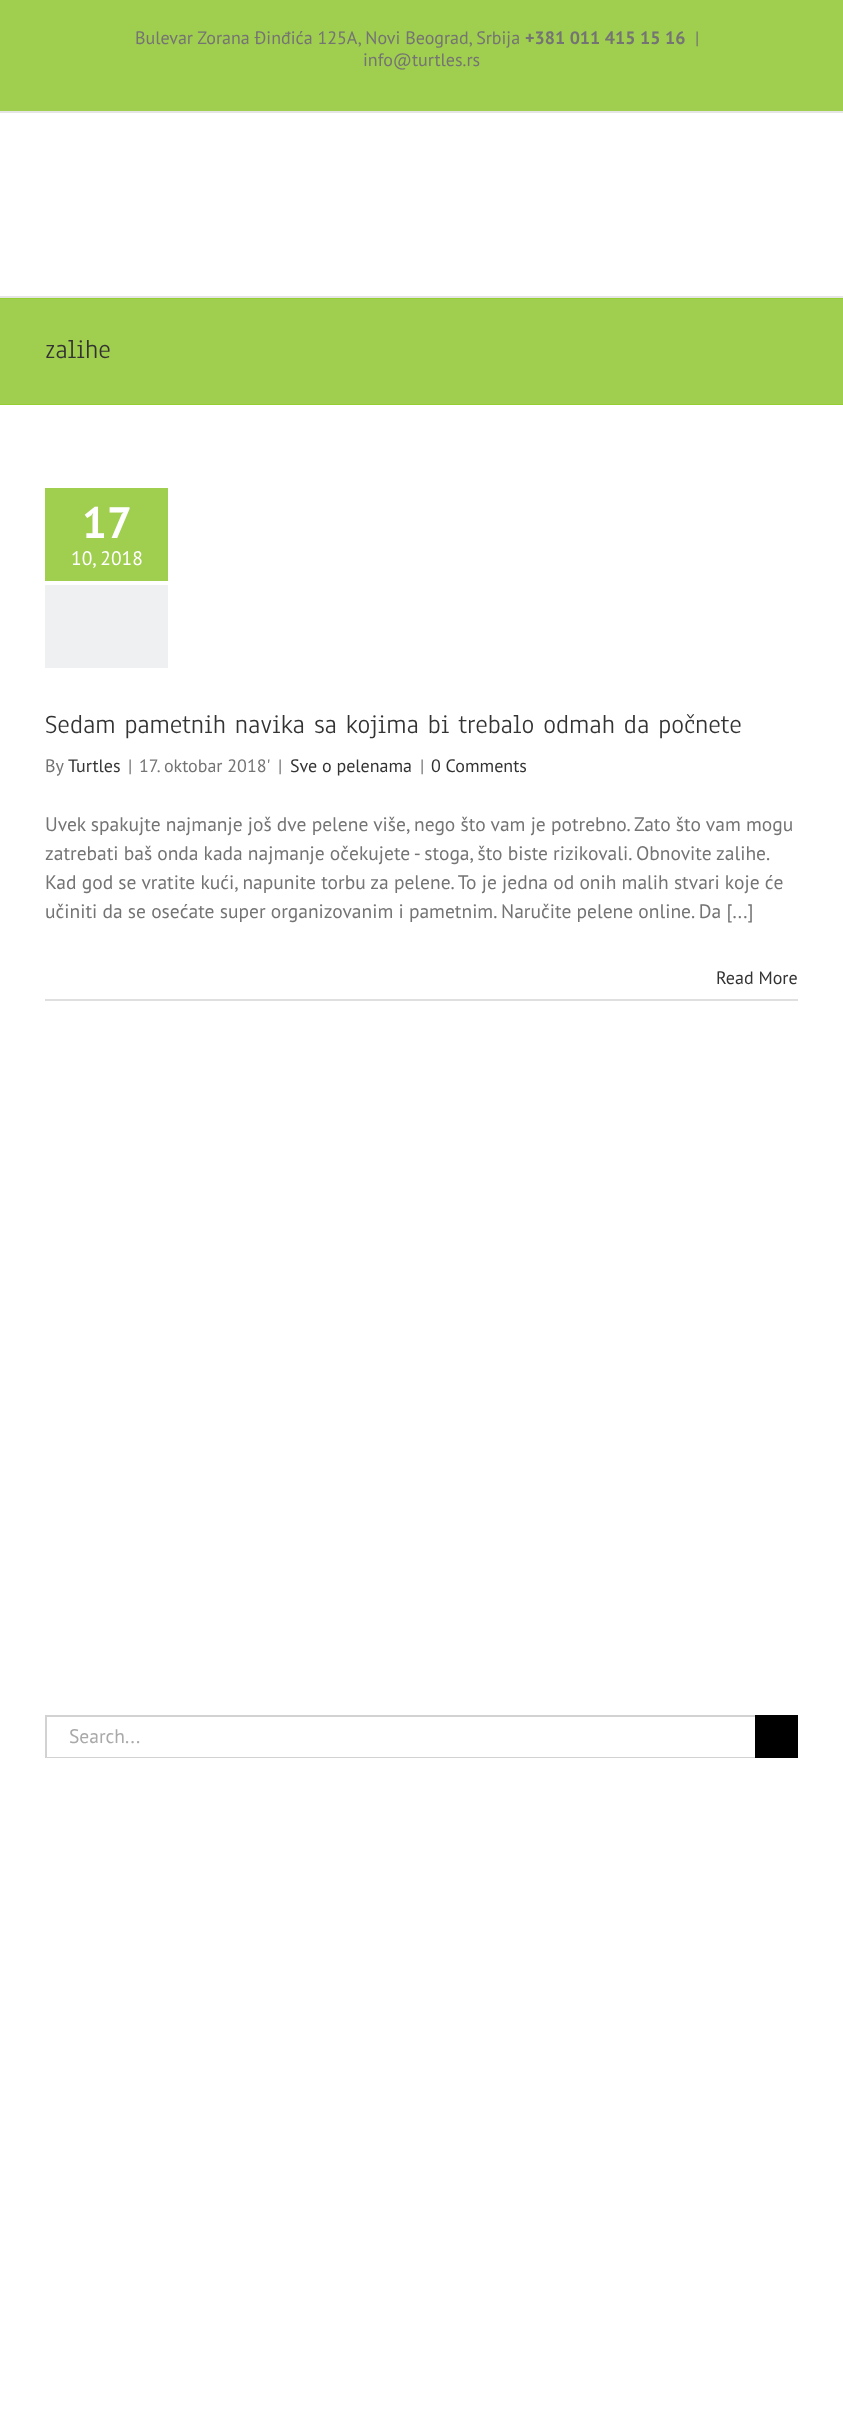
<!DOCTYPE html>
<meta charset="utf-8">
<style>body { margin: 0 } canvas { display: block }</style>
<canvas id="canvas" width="843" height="2411"></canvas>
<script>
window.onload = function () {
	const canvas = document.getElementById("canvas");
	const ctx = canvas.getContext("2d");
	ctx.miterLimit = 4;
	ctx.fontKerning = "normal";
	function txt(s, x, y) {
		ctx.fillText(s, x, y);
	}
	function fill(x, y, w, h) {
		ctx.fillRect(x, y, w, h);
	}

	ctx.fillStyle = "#FFFFFF";
	fill(0, 0, 843, 2411);
	ctx.fillStyle = "#A0CE4E";
	fill(0, 0, 843, 111);
	ctx.fillStyle = "#E5E5E5";
	fill(0, 111, 843, 2);
	fill(0, 296, 843, 2);
	ctx.fillStyle = "#A0CE4E";
	fill(0, 299, 843, 105);
	ctx.fillStyle = "#94CE31";
	fill(0, 298, 843, 1);
	fill(0, 404, 843, 1);
	ctx.fillStyle = "#A0CE4E";
	fill(45, 488, 123, 93);
	ctx.fillStyle = "#EEF0F2";
	fill(45, 585, 123, 83);
	ctx.fillStyle = "#E0DEDE";
	fill(45, 999, 753, 2);
	ctx.fillStyle = "#D2D2D2";
	fill(45, 1715, 710, 2);
	fill(45, 1757, 710, 1);
	fill(45, 1715, 2, 43);
	ctx.fillStyle = "#000000";
	fill(755, 1715, 43, 43);
	ctx.font = "18px PT Sans";
	ctx.fillStyle = "#747474";
	txt("Bulevar Zorana Đinđića 125A, Novi Beograd, Srbija", 135, 44);
	ctx.font = "bold 18px PT Sans";
	txt("+381 011 415 15 16", 525, 44);
	ctx.font = "18px PT Sans";
	txt("|", 695, 44);
	txt("info@turtles.rs", 363, 66);
	ctx.font = "27px Anaheim";
	ctx.fillStyle = "#333333";
	txt("zalihe", 45, 358);
	ctx.font = "bold 44px PT Sans";
	ctx.fillStyle = "#FFFFFF";
	txt("17", 82, 538);
	ctx.font = "19.5px PT Sans";
	txt("10, 2018", 71, 565);
	ctx.font = "27px Anaheim";
	ctx.fillStyle = "#333333";
	txt("Sedam pametnih navika sa kojima bi trebalo odmah da počnete", 45, 733);
	ctx.font = "18px PT Sans";
	ctx.fillStyle = "#747474";
	txt("By", 45, 772);
	ctx.fillStyle = "#333333";
	txt("Turtles", 68, 772);
	ctx.fillStyle = "#747474";
	txt("|", 128, 772);
	txt("17. oktobar 2018'", 139, 772);
	txt("|", 278, 772);
	ctx.fillStyle = "#333333";
	txt("Sve o pelenama", 290, 772);
	ctx.fillStyle = "#747474";
	txt("|", 420, 772);
	ctx.fillStyle = "#333333";
	txt("0 Comments", 431, 772);
	ctx.font = "19.5px PT Sans";
	ctx.fillStyle = "#747474";
	txt("Uvek spakujte najmanje još dve pelene više, nego što vam je potrebno. Zato što vam mogu", 45, 831);
	ctx.wordSpacing = "-0.1px";
	txt("zatrebati baš onda kada najmanje očekujete - stoga, što biste rizikovali. Obnovite zalihe.", 45, 860);
	ctx.wordSpacing = "0px";
	txt("Kad god se vratite kući, napunite torbu za pelene. To je jedna od onih malih stvari koje će", 45, 889);
	txt("učiniti da se osećate super organizovanim i pametnim. Naručite pelene online. Da [...]", 45, 918);
	ctx.font = "18px PT Sans";
	ctx.fillStyle = "#333333";
	txt("Read More", 716, 984);
	ctx.font = "19.5px PT Sans";
	ctx.fillStyle = "#AAA9A9";
	txt("Search...", 69, 1743);
};
</script>
